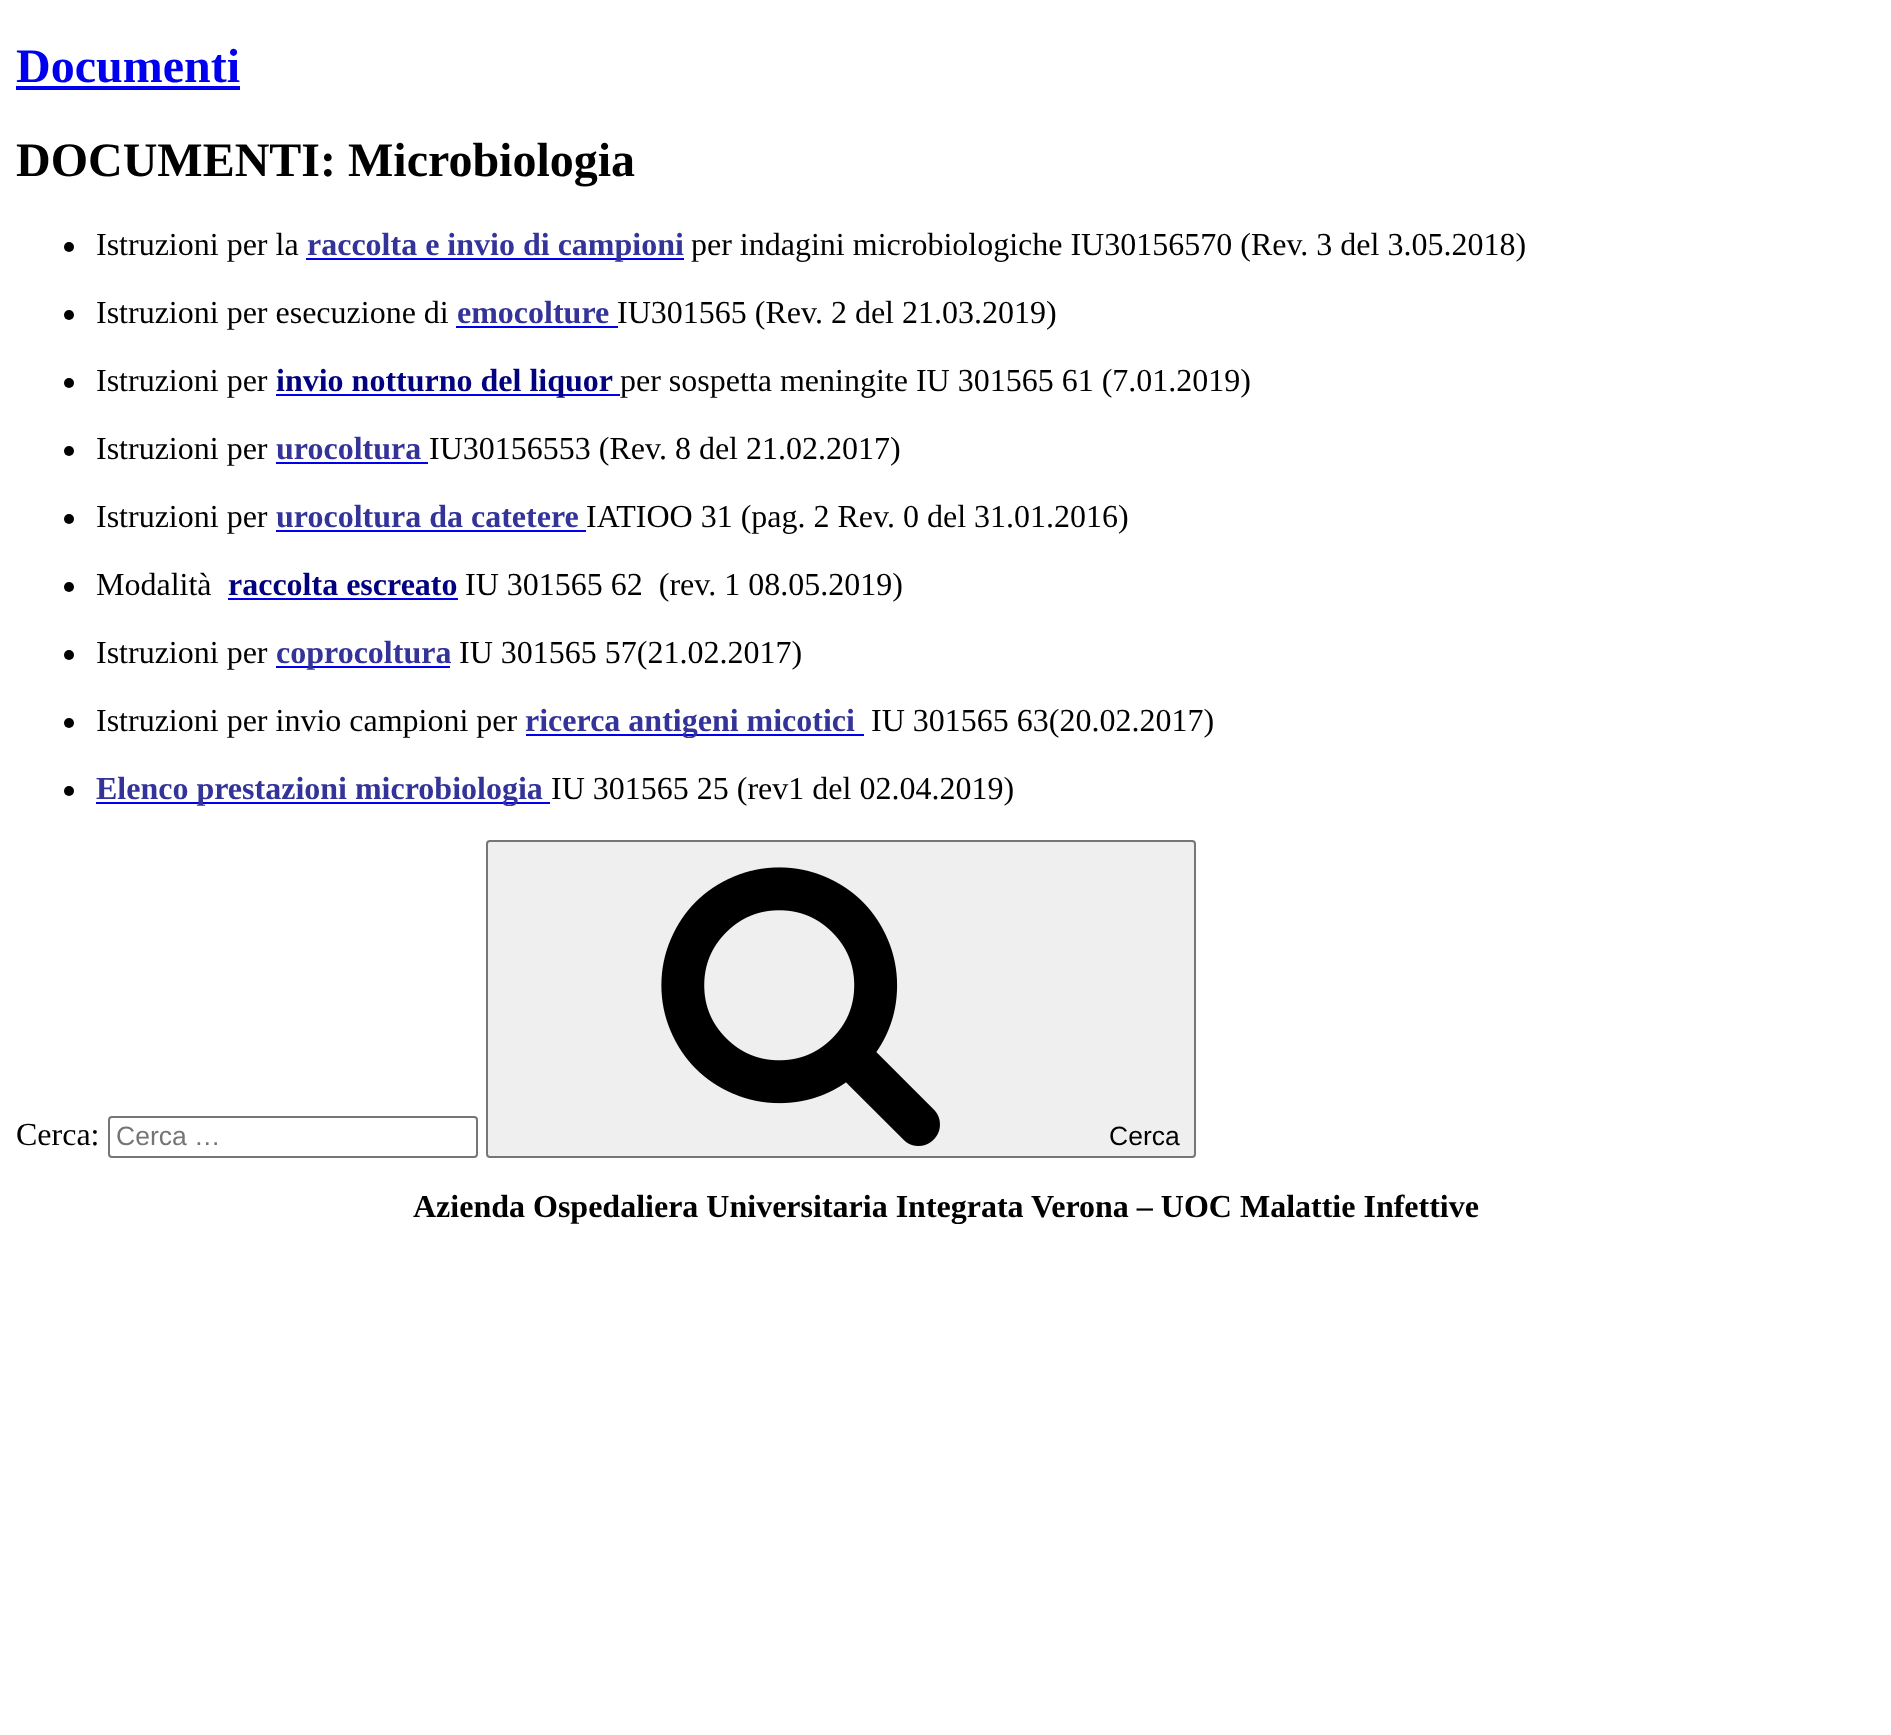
<!DOCTYPE html>
<meta charset="utf-8">
<style>body { margin: 0 } canvas { display: block }</style>
<canvas id="canvas" width="1891" height="1735"></canvas>
<img id="img1" src="img_01.png" hidden>
<script>
window.onload = function () {
	const canvas = document.getElementById("canvas");
	const ctx = canvas.getContext("2d");
	ctx.miterLimit = 4;
	ctx.fontKerning = "normal";
	function txt(s, x, y) {
		ctx.fillText(s, x, y);
	}
	function fill(x, y, w, h) {
		ctx.fillRect(x, y, w, h);
	}
	function img(id, x, y, w, h) {
		ctx.drawImage(document.getElementById(id), x, y, w, h);
	}

	ctx.fillStyle = "#FFFFFF";
	fill(0, 0, 1891, 1735);
	ctx.fillStyle = "#0000EE";
	fill(16, 86, 224, 4);
	ctx.fillStyle = "#000000";
	ctx.beginPath();
	ctx.arc(69, 247, 5, 0, Math.PI * 2);
	ctx.fill();
	ctx.fillStyle = "#0000EE";
	fill(306, 258, 378, 2);
	ctx.fillStyle = "#000000";
	ctx.beginPath();
	ctx.arc(69, 315, 5, 0, Math.PI * 2);
	ctx.fill();
	ctx.fillStyle = "#0000EE";
	fill(456, 326, 162, 2);
	ctx.fillStyle = "#000000";
	ctx.beginPath();
	ctx.arc(69, 383, 5, 0, Math.PI * 2);
	ctx.fill();
	ctx.fillStyle = "#0000EE";
	fill(276, 394, 344, 2);
	ctx.fillStyle = "#000000";
	ctx.beginPath();
	ctx.arc(69, 451, 5, 0, Math.PI * 2);
	ctx.fill();
	ctx.fillStyle = "#0000EE";
	fill(276, 462, 152, 2);
	ctx.fillStyle = "#000000";
	ctx.beginPath();
	ctx.arc(69, 519, 5, 0, Math.PI * 2);
	ctx.fill();
	ctx.fillStyle = "#0000EE";
	fill(276, 530, 310, 2);
	ctx.fillStyle = "#000000";
	ctx.beginPath();
	ctx.arc(69, 587, 5, 0, Math.PI * 2);
	ctx.fill();
	ctx.fillStyle = "#0000EE";
	fill(228, 598, 230, 2);
	ctx.fillStyle = "#000000";
	ctx.beginPath();
	ctx.arc(69, 655, 5, 0, Math.PI * 2);
	ctx.fill();
	ctx.fillStyle = "#0000EE";
	fill(276, 666, 174, 2);
	ctx.fillStyle = "#000000";
	ctx.beginPath();
	ctx.arc(69, 723, 5, 0, Math.PI * 2);
	ctx.fill();
	ctx.fillStyle = "#0000EE";
	fill(526, 734, 338, 2);
	ctx.fillStyle = "#000000";
	ctx.beginPath();
	ctx.arc(69, 791, 5, 0, Math.PI * 2);
	ctx.fill();
	ctx.fillStyle = "#0000EE";
	fill(96, 802, 454, 2);
	ctx.beginPath();
	ctx.roundRect(109, 1117, 368, 40, 3);
	ctx.strokeStyle = "#767676";
	ctx.lineWidth = 2;
	ctx.stroke();
	ctx.fillStyle = "#EFEFEF";
	ctx.beginPath();
	ctx.roundRect(487, 841, 708, 316, 3);
	ctx.fill();
	ctx.stroke();
	img("img1", 661, 867, 279, 279);
	ctx.font = "bold 48px Liberation Serif";
	ctx.fillStyle = "#0000EE";
	txt("Documenti", 16, 82);
	ctx.fillStyle = "#000000";
	txt("DOCUMENTI: Microbiologia", 16, 176);
	ctx.font = "32px Liberation Serif";
	txt("Istruzioni per la", 96, 255);
	ctx.font = "bold 32px Liberation Serif";
	ctx.fillStyle = "#333399";
	txt("raccolta e invio di campioni", 307, 255);
	ctx.font = "32px Liberation Serif";
	ctx.fillStyle = "#000000";
	txt("per indagini microbiologiche IU30156570 (Rev. 3 del 3.05.2018)", 691, 255);
	txt("Istruzioni per esecuzione di", 96, 323);
	ctx.font = "bold 32px Liberation Serif";
	ctx.fillStyle = "#333399";
	txt("emocolture", 457, 323);
	ctx.font = "32px Liberation Serif";
	ctx.fillStyle = "#000000";
	txt("IU301565 (Rev. 2 del 21.03.2019)", 617, 323);
	txt("Istruzioni per", 96, 391);
	ctx.font = "bold 32px Liberation Serif";
	ctx.fillStyle = "#000080";
	txt("invio notturno del liquor", 276, 391);
	ctx.font = "32px Liberation Serif";
	ctx.fillStyle = "#000000";
	txt("per sospetta meningite IU 301565 61 (7.01.2019)", 620, 391);
	txt("Istruzioni per", 96, 459);
	ctx.font = "bold 32px Liberation Serif";
	ctx.fillStyle = "#333399";
	txt("urocoltura", 276, 459);
	ctx.font = "32px Liberation Serif";
	ctx.fillStyle = "#000000";
	txt("IU30156553 (Rev. 8 del 21.02.2017)", 429, 459);
	txt("Istruzioni per", 96, 527);
	ctx.font = "bold 32px Liberation Serif";
	ctx.fillStyle = "#333399";
	txt("urocoltura da catetere", 276, 527);
	ctx.font = "32px Liberation Serif";
	ctx.fillStyle = "#000000";
	txt("IATIOO 31 (pag. 2 Rev. 0 del 31.01.2016)", 586, 527);
	txt("Modalità", 96, 595);
	ctx.font = "bold 32px Liberation Serif";
	ctx.fillStyle = "#000080";
	txt("raccolta escreato", 228, 595);
	ctx.font = "32px Liberation Serif";
	ctx.fillStyle = "#000000";
	txt("IU 301565 62  (rev. 1 08.05.2019)", 465, 595);
	txt("Istruzioni per", 96, 663);
	ctx.font = "bold 32px Liberation Serif";
	ctx.fillStyle = "#333399";
	txt("coprocoltura", 276, 663);
	ctx.font = "32px Liberation Serif";
	ctx.fillStyle = "#000000";
	txt("IU 301565 57(21.02.2017)", 459, 663);
	txt("Istruzioni per invio campioni per", 96, 731);
	ctx.font = "bold 32px Liberation Serif";
	ctx.fillStyle = "#333399";
	txt("ricerca antigeni micotici", 525, 731);
	ctx.font = "32px Liberation Serif";
	ctx.fillStyle = "#000000";
	txt("IU 301565 63(20.02.2017)", 871, 731);
	ctx.font = "bold 32px Liberation Serif";
	ctx.fillStyle = "#333399";
	txt("Elenco prestazioni microbiologia", 96, 799);
	ctx.font = "32px Liberation Serif";
	ctx.fillStyle = "#000000";
	txt("IU 301565 25 (rev1 del 02.04.2019)", 551, 799);
	txt("Cerca:", 16, 1145);
	ctx.font = "26.5px Liberation Sans";
	ctx.fillStyle = "#757575";
	txt("Cerca …", 116, 1145);
	ctx.fillStyle = "#000000";
	txt("Cerca", 1109, 1145);
	ctx.font = "bold 32px Liberation Serif";
	txt("Azienda Ospedaliera Universitaria Integrata Verona – UOC Malattie Infettive", 413, 1217);
};
</script>
